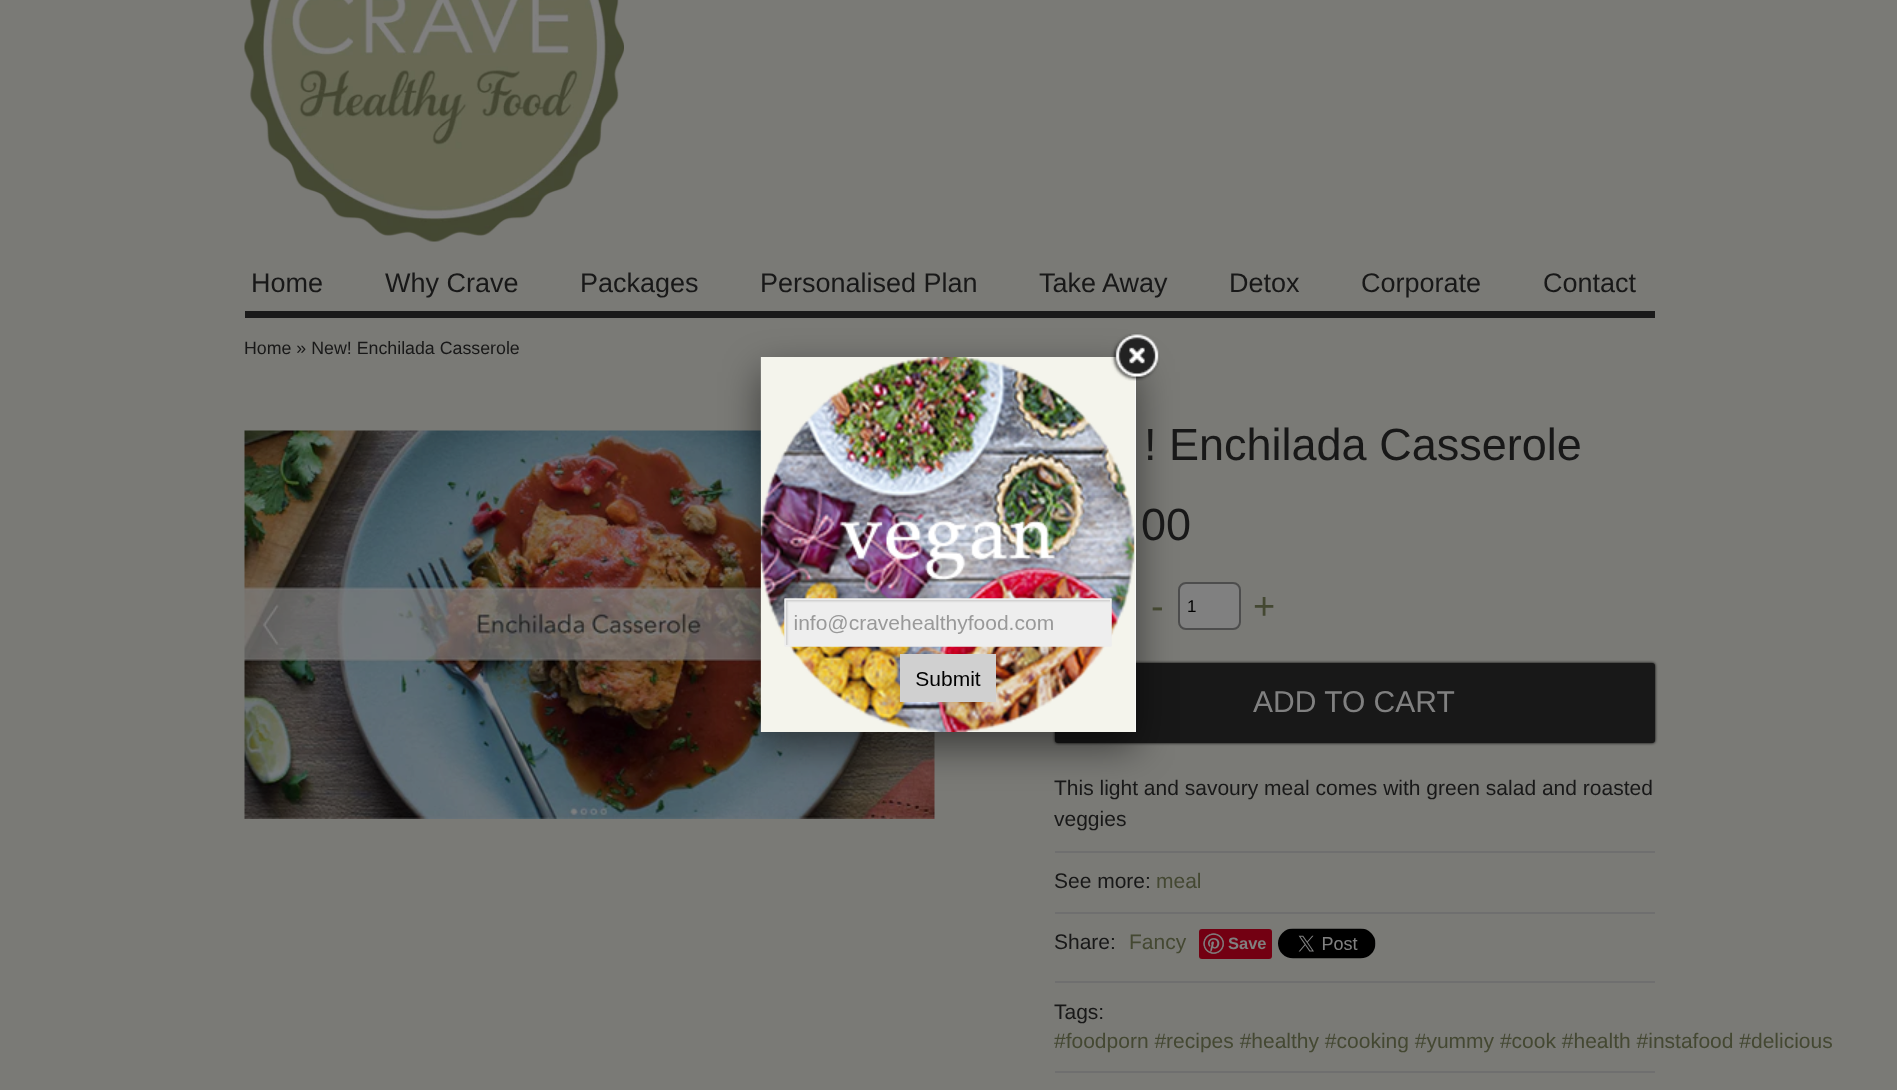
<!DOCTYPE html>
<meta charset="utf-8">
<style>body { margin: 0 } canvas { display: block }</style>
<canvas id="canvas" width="1897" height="1090"></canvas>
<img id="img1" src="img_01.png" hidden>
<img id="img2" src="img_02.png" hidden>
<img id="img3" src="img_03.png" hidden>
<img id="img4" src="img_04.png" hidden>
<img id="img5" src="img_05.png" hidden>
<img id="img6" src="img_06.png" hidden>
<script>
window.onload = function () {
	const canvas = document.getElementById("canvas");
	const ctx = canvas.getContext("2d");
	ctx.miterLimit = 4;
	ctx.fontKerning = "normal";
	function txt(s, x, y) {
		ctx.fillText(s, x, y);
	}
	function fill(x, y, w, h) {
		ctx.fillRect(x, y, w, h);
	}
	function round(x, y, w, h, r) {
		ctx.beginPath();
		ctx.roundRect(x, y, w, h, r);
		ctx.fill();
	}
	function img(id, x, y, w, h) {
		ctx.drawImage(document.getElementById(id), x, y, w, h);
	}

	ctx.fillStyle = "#7A7A76";
	fill(0, 0, 1897, 1090);
	img("img1", 244, 0, 380, 242);
	ctx.fillStyle = "#1A1A1A";
	fill(245, 311, 1410, 7);
	img("img2", 244, 430, 691, 389);
	ctx.fillStyle = "#808080";
	ctx.beginPath();
	ctx.roundRect(1179, 583, 61, 46, 7);
	ctx.fill();
	ctx.strokeStyle = "#4D4D4D";
	ctx.lineWidth = 2;
	ctx.stroke();
	ctx.fillStyle = "#000000";
	ctx.filter = "blur(1.5px)";
	ctx.beginPath();
	ctx.roundRect(1055, 663, 600, 80, 3);
	ctx.fill();
	ctx.filter = "none";
	ctx.fillStyle = "#181818";
	round(1055, 663, 600, 80, 3);
	ctx.fillStyle = "#6F6F6F";
	fill(1055, 851, 600, 2);
	fill(1055, 912, 600, 2);
	fill(1055, 981, 600, 2);
	ctx.fillStyle = "#730012";
	round(1199, 929, 73, 30, 3);
	img("img3", 1203, 933, 21, 21);
	img("img4", 1278, 928, 98, 31);
	ctx.fillStyle = "#6F6F6F";
	fill(1055, 1071, 600, 2);
	ctx.fillStyle = "rgba(0, 0, 0, 0.5)";
	ctx.filter = "blur(19px)";
	ctx.beginPath();
	ctx.rect(761, 372, 375, 375);
	ctx.fill();
	ctx.filter = "none";
	ctx.fillStyle = "#F9F9F9";
	fill(1135, 373, 1, 359);
	img("img5", 760, 357, 375, 375);
	img("img6", 1111, 333, 49, 48);
	ctx.font = "27px Liberation Sans";
	ctx.fillStyle = "#181818";
	txt("Home", 251, 292);
	txt("Why Crave", 385, 292);
	txt("Packages", 580, 292);
	txt("Personalised Plan", 760, 292);
	txt("Take Away", 1039, 292);
	txt("Detox", 1229, 292);
	txt("Corporate", 1361, 292);
	txt("Contact", 1543, 292);
	ctx.font = "17.8px Liberation Sans";
	txt("Home » New! Enchilada Casserole", 244, 354);
	ctx.font = "45px Liberation Sans";
	txt("! Enchilada Casserole", 1144, 460);
	txt("00", 1141, 540);
	ctx.font = "38px Liberation Sans";
	ctx.fillStyle = "#444832";
	txt("-", 1151, 619);
	ctx.font = "17px Liberation Sans";
	ctx.fillStyle = "#000000";
	txt("1", 1187, 612);
	ctx.font = "38px Liberation Sans";
	ctx.fillStyle = "#444832";
	txt("+", 1253, 619);
	ctx.font = "30px Liberation Sans";
	ctx.fillStyle = "#808080";
	txt("ADD TO CART", 1253, 712);
	ctx.font = "21px Liberation Sans";
	ctx.fillStyle = "#181818";
	txt("This light and savoury meal comes with green salad and roasted", 1054, 795);
	txt("veggies", 1054, 826);
	txt("See more:", 1054, 888);
	ctx.fillStyle = "#444832";
	txt("meal", 1156, 888);
	ctx.fillStyle = "#181818";
	txt("Share:", 1054, 949);
	ctx.fillStyle = "#444832";
	txt("Fancy", 1129, 949);
	ctx.font = "bold 16.5px Liberation Sans";
	ctx.fillStyle = "#808080";
	txt("Save", 1228, 949);
	ctx.font = "21px Liberation Sans";
	ctx.fillStyle = "#181818";
	txt("Tags:", 1054, 1019);
	ctx.fillStyle = "#444832";
	txt("#foodporn #recipes #healthy #cooking #yummy #cook #health #instafood #delicious", 1054, 1048);
};
</script>
